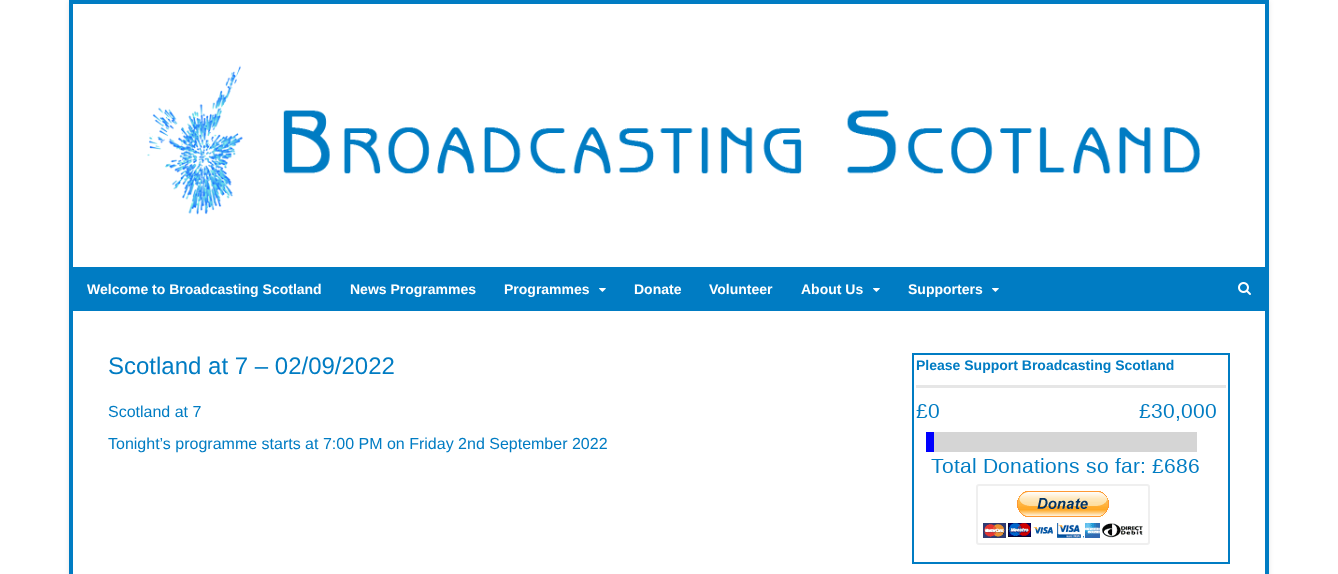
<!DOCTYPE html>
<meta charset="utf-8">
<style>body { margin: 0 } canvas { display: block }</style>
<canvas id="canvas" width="1338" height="574"></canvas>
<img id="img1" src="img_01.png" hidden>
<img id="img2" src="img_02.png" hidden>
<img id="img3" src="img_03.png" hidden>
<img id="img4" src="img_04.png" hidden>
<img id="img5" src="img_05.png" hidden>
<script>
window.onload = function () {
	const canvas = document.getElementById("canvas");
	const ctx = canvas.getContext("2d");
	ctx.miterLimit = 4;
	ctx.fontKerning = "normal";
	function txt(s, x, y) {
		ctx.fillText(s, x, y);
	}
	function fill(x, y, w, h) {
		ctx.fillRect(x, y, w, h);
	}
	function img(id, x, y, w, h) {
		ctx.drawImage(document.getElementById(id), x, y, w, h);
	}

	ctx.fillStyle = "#FFFFFF";
	fill(0, 0, 1338, 574);
	ctx.save();
	ctx.beginPath();
	ctx.moveTo(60, 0);
	ctx.lineTo(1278, 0);
	ctx.lineTo(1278, 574);
	ctx.lineTo(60, 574);
	ctx.closePath();
	ctx.moveTo(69, 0);
	ctx.lineTo(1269, 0);
	ctx.lineTo(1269, 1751);
	ctx.lineTo(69, 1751);
	ctx.closePath();
	ctx.clip("evenodd");
	ctx.fillStyle = "rgba(0, 0, 0, 0.1)";
	ctx.filter = "blur(2.5px)";
	ctx.beginPath();
	ctx.rect(69, 1, 1200, 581);
	ctx.fill();
	ctx.filter = "none";
	ctx.restore();
	ctx.strokeStyle = "#007CC3";
	ctx.lineWidth = 4;
	ctx.strokeRect(71, 2, 1196, 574);
	img("img1", 147, 65, 1054, 150);
	ctx.fillStyle = "#007CC3";
	fill(73, 267, 1192, 44);
	img("img2", 599, 288, 7, 4);
	img("img2", 873, 288, 7, 4);
	img("img2", 992, 288, 7, 4);
	img("img3", 1238, 282, 13, 13);
	ctx.lineWidth = 2;
	ctx.strokeRect(913, 354, 316, 209);
	ctx.fillStyle = "#E6E6E6";
	fill(916, 385, 310, 3);
	img("img4", 916, 404, 300, 69);
	ctx.beginPath();
	ctx.roundRect(977, 485, 172, 59, 2);
	ctx.strokeStyle = "#EFEFEF";
	ctx.stroke();
	img("img5", 983, 491, 160, 47);
	ctx.font = "bold 14px Liberation Sans";
	ctx.fillStyle = "#FFFFFF";
	txt("Welcome to Broadcasting Scotland", 87, 294);
	txt("News Programmes", 350, 294);
	txt("Programmes", 504, 294);
	txt("Donate", 634, 294);
	txt("Volunteer", 709, 294);
	txt("About Us", 801, 294);
	txt("Supporters", 908, 294);
	ctx.font = "24px Liberation Sans";
	ctx.fillStyle = "#007CC3";
	txt("Scotland at 7 – 02/09/2022", 108, 374);
	ctx.font = "16px Liberation Sans";
	txt("Scotland at 7", 108, 417);
	txt("Tonight’s programme starts at 7:00 PM on Friday 2nd September 2022", 108, 449);
	ctx.font = "bold 14px Liberation Sans";
	txt("Please Support Broadcasting Scotland", 916, 370);
};
</script>
